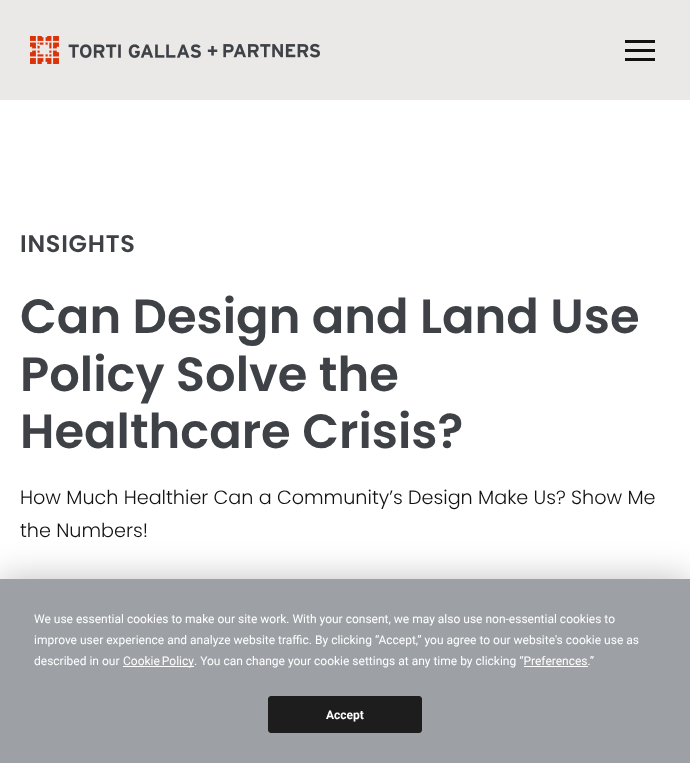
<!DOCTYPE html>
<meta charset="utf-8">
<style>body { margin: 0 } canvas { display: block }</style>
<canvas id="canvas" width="690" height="763"></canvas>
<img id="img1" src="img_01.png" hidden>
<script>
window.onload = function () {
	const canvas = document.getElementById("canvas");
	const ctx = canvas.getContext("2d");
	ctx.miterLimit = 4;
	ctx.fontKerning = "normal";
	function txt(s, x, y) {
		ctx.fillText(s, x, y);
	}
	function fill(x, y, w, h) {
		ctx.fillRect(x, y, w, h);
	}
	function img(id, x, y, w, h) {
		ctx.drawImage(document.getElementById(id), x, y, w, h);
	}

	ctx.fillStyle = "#FFFFFF";
	fill(0, 0, 690, 763);
	ctx.fillStyle = "#EBE9E7";
	fill(0, 0, 690, 100);
	img("img1", 30, 36, 290, 28);
	ctx.fillStyle = "#111111";
	fill(625, 40, 30, 3);
	fill(625, 49, 30, 3);
	fill(625, 58, 30, 3);
	ctx.fillStyle = "rgba(0, 0, 0, 0.25)";
	ctx.filter = "blur(17.5px)";
	ctx.beginPath();
	ctx.rect(0, 579, 690, 184);
	ctx.fill();
	ctx.filter = "none";
	ctx.fillStyle = "#9DA0A5";
	fill(0, 579, 690, 184);
	ctx.fillStyle = "#FFFFFF";
	fill(123, 666, 71, 1);
	fill(524, 666, 64, 1);
	ctx.fillStyle = "#1D1D1D";
	ctx.beginPath();
	ctx.roundRect(268.5, 696.5, 153, 36, 2.5);
	ctx.fill();
	ctx.strokeStyle = "#1D1D1D";
	ctx.stroke();
	ctx.letterSpacing = "0.75px";
	ctx.font = "600 24px Poppins";
	ctx.fillStyle = "#3E4146";
	txt("INSIGHTS", 20, 252);
	ctx.letterSpacing = "0px";
	ctx.font = "600 48px Poppins";
	txt("Can Design and Land Use", 20, 333);
	txt("Policy Solve the", 20, 391);
	txt("Healthcare Crisis?", 20, 448);
	ctx.font = "300 19.2px Poppins";
	ctx.fillStyle = "#111111";
	txt("How Much Healthier Can a Community’s Design Make Us? Show Me", 20, 504);
	txt("the Numbers!", 20, 537);
	ctx.font = "12px Roboto";
	ctx.fillStyle = "#FFFFFF";
	txt("We use essential cookies to make our site work. With your consent, we may also use non-essential cookies to", 34, 623);
	txt("improve user experience and analyze website traffic. By clicking “Accept,” you agree to our website's cookie use as", 34, 644);
	txt("described in our", 34, 665);
	ctx.wordSpacing = "-1px";
	txt("Cookie Policy", 123, 665);
	ctx.wordSpacing = "0px";
	txt(". You can change your cookie settings at any time by clicking “Preferences.”", 194, 665);
	ctx.font = "bold 12px Roboto";
	txt("Accept", 326, 719);
};
</script>
